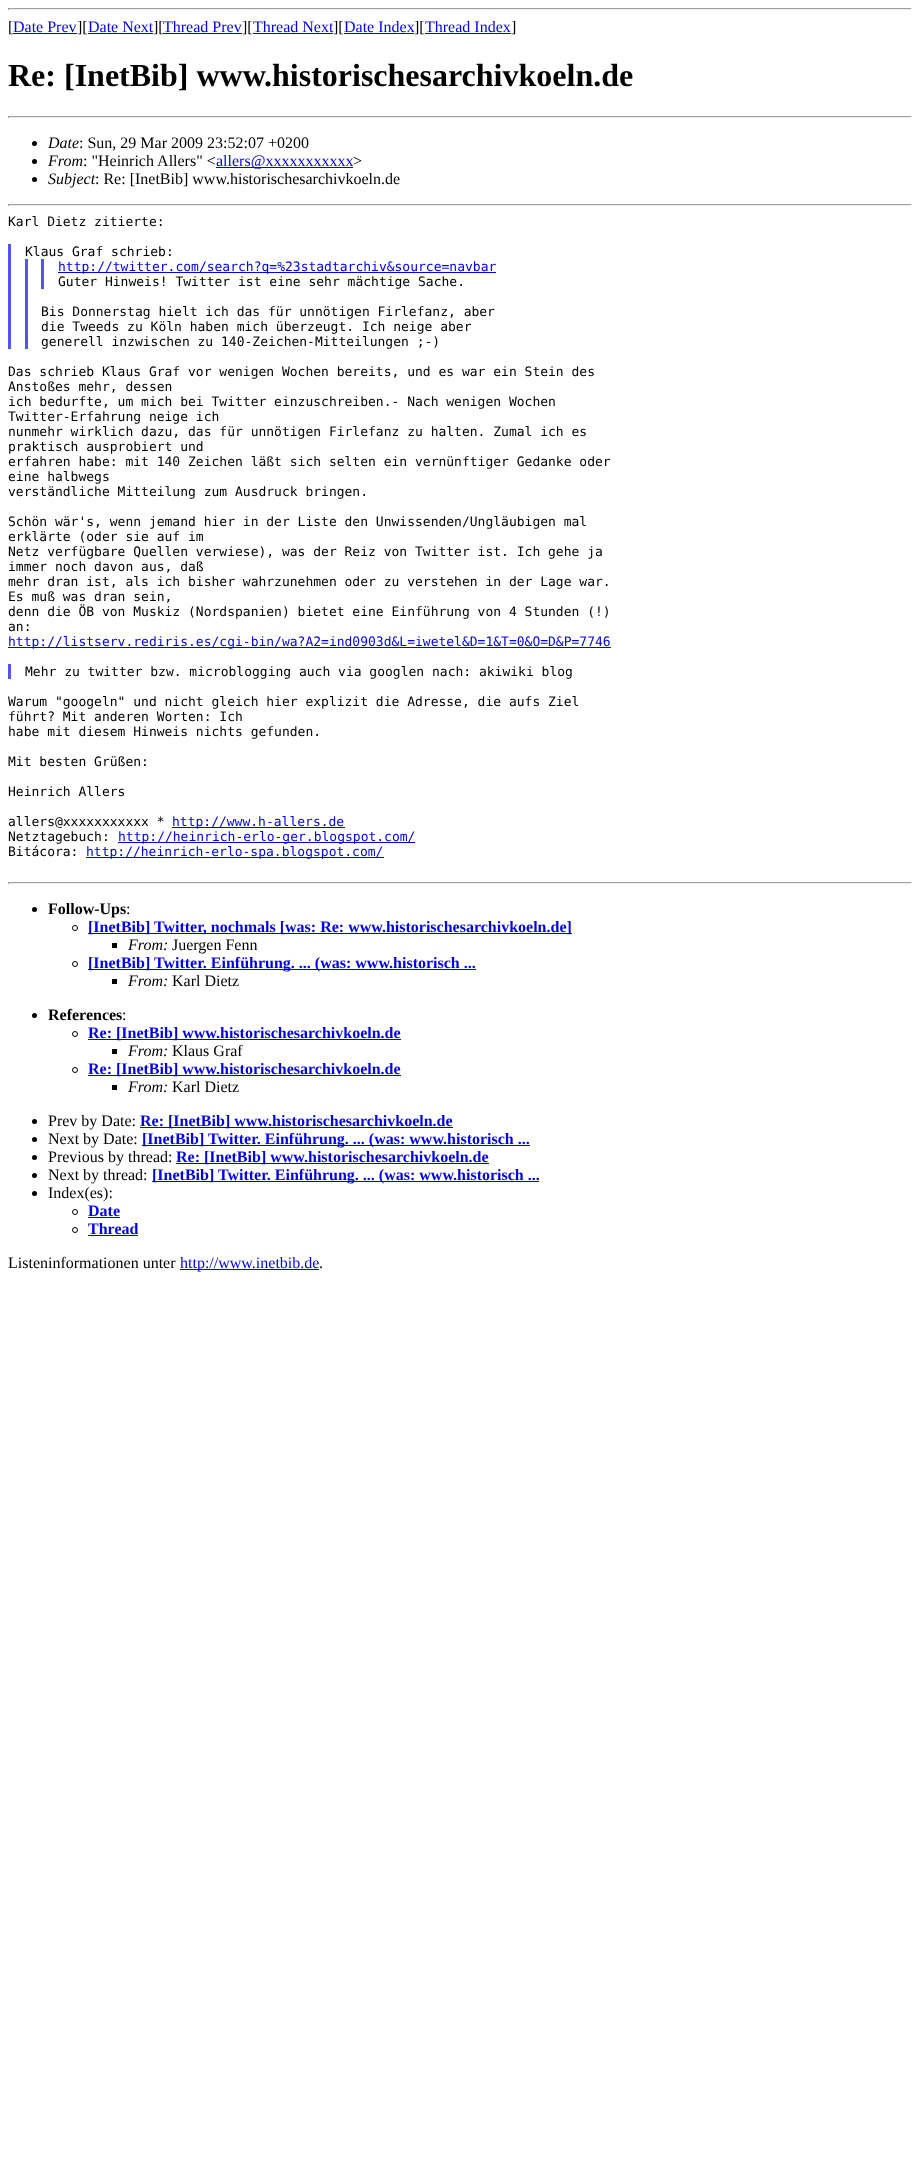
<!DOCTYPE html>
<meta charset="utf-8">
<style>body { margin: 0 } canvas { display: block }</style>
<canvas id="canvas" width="920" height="2176"></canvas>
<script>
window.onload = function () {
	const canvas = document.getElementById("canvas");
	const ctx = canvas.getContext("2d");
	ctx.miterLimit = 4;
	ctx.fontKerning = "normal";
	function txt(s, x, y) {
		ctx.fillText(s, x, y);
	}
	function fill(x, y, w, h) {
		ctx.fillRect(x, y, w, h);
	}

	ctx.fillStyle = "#FFFFFF";
	fill(0, 0, 920, 2176);
	ctx.fillStyle = "#9F9F9F";
	fill(8, 8, 904, 1);
	ctx.fillStyle = "#EEEEEE";
	fill(911, 8, 1, 2);
	fill(8, 9, 904, 1);
	ctx.fillStyle = "#9F9F9F";
	fill(8, 8, 1, 2);
	ctx.fillStyle = "#0000EE";
	fill(13, 33, 64, 1);
	fill(88, 33, 65, 1);
	fill(163, 33, 79, 1);
	fill(253, 33, 80, 1);
	fill(344, 33, 70, 1);
	fill(425, 33, 86, 1);
	ctx.fillStyle = "#9F9F9F";
	fill(8, 116, 904, 1);
	ctx.fillStyle = "#EEEEEE";
	fill(911, 116, 1, 2);
	fill(8, 117, 904, 1);
	ctx.fillStyle = "#9F9F9F";
	fill(8, 116, 1, 2);
	ctx.fillStyle = "#000000";
	ctx.beginPath();
	ctx.arc(34.5, 143.5, 2.5, 0, Math.PI * 2);
	ctx.fill();
	ctx.beginPath();
	ctx.arc(34.5, 161.5, 2.5, 0, Math.PI * 2);
	ctx.fill();
	ctx.fillStyle = "#0000EE";
	fill(216, 167, 137, 1);
	ctx.fillStyle = "#000000";
	ctx.beginPath();
	ctx.arc(34.5, 179.5, 2.5, 0, Math.PI * 2);
	ctx.fill();
	ctx.fillStyle = "#9F9F9F";
	fill(8, 204, 904, 1);
	ctx.fillStyle = "#EEEEEE";
	fill(911, 204, 1, 2);
	fill(8, 205, 904, 1);
	ctx.fillStyle = "#9F9F9F";
	fill(8, 204, 1, 2);
	ctx.fillStyle = "#5555EE";
	fill(8, 244, 3, 105);
	fill(25, 259, 3, 90);
	fill(41, 259, 3, 30);
	ctx.fillStyle = "#0000EE";
	fill(58, 272, 438, 1);
	fill(8, 647, 603, 1);
	ctx.fillStyle = "#5555EE";
	fill(8, 664, 3, 15);
	ctx.fillStyle = "#0000EE";
	fill(172, 827, 173, 1);
	fill(118, 842, 297, 1);
	fill(86, 857, 298, 1);
	ctx.fillStyle = "#9F9F9F";
	fill(8, 882, 904, 1);
	ctx.fillStyle = "#EEEEEE";
	fill(911, 882, 1, 2);
	fill(8, 883, 904, 1);
	ctx.fillStyle = "#9F9F9F";
	fill(8, 882, 1, 2);
	ctx.fillStyle = "#000000";
	ctx.beginPath();
	ctx.arc(34.5, 909.5, 2.5, 0, Math.PI * 2);
	ctx.fill();
	ctx.beginPath();
	ctx.arc(75, 928, 2.5, 0, Math.PI * 2);
	ctx.strokeStyle = "#000000";
	ctx.stroke();
	ctx.fillStyle = "#0000EE";
	fill(88, 933, 484, 1);
	ctx.fillStyle = "#000000";
	fill(112, 943, 5, 5);
	ctx.beginPath();
	ctx.arc(75, 964, 2.5, 0, Math.PI * 2);
	ctx.stroke();
	ctx.fillStyle = "#0000EE";
	fill(88, 969, 388, 1);
	ctx.fillStyle = "#000000";
	fill(112, 979, 5, 5);
	ctx.beginPath();
	ctx.arc(34.5, 1015.5, 2.5, 0, Math.PI * 2);
	ctx.fill();
	ctx.beginPath();
	ctx.arc(75, 1034, 2.5, 0, Math.PI * 2);
	ctx.stroke();
	ctx.fillStyle = "#0000EE";
	fill(88, 1039, 313, 1);
	ctx.fillStyle = "#000000";
	fill(112, 1049, 5, 5);
	ctx.beginPath();
	ctx.arc(75, 1070, 2.5, 0, Math.PI * 2);
	ctx.stroke();
	ctx.fillStyle = "#0000EE";
	fill(88, 1075, 313, 1);
	ctx.fillStyle = "#000000";
	fill(112, 1085, 5, 5);
	ctx.beginPath();
	ctx.arc(34.5, 1121.5, 2.5, 0, Math.PI * 2);
	ctx.fill();
	ctx.fillStyle = "#0000EE";
	fill(140, 1127, 313, 1);
	ctx.fillStyle = "#000000";
	ctx.beginPath();
	ctx.arc(34.5, 1139.5, 2.5, 0, Math.PI * 2);
	ctx.fill();
	ctx.fillStyle = "#0000EE";
	fill(142, 1145, 388, 1);
	ctx.fillStyle = "#000000";
	ctx.beginPath();
	ctx.arc(34.5, 1157.5, 2.5, 0, Math.PI * 2);
	ctx.fill();
	ctx.fillStyle = "#0000EE";
	fill(176, 1163, 313, 1);
	ctx.fillStyle = "#000000";
	ctx.beginPath();
	ctx.arc(34.5, 1175.5, 2.5, 0, Math.PI * 2);
	ctx.fill();
	ctx.fillStyle = "#0000EE";
	fill(152, 1181, 387, 1);
	ctx.fillStyle = "#000000";
	ctx.beginPath();
	ctx.arc(34.5, 1193.5, 2.5, 0, Math.PI * 2);
	ctx.fill();
	ctx.beginPath();
	ctx.arc(75, 1212, 2.5, 0, Math.PI * 2);
	ctx.stroke();
	ctx.fillStyle = "#0000EE";
	fill(88, 1217, 32, 1);
	ctx.beginPath();
	ctx.arc(75, 1230, 2.5, 0, Math.PI * 2);
	ctx.stroke();
	fill(88, 1235, 50, 1);
	fill(180, 1269, 139, 1);
	ctx.font = "16px Liberation Serif";
	ctx.fillStyle = "#000000";
	txt("[", 8, 32);
	ctx.fillStyle = "#0000EE";
	txt("Date Prev", 13, 32);
	ctx.fillStyle = "#000000";
	txt("][", 77, 32);
	ctx.fillStyle = "#0000EE";
	txt("Date Next", 88, 32);
	ctx.fillStyle = "#000000";
	txt("][", 153, 32);
	ctx.fillStyle = "#0000EE";
	txt("Thread Prev", 163, 32);
	ctx.fillStyle = "#000000";
	txt("][", 242, 32);
	ctx.fillStyle = "#0000EE";
	txt("Thread Next", 253, 32);
	ctx.fillStyle = "#000000";
	txt("][", 333, 32);
	ctx.fillStyle = "#0000EE";
	txt("Date Index", 344, 32);
	ctx.fillStyle = "#000000";
	txt("][", 414, 32);
	ctx.fillStyle = "#0000EE";
	txt("Thread Index", 425, 32);
	ctx.fillStyle = "#000000";
	txt("]", 511, 32);
	ctx.font = "bold 32px Liberation Serif";
	txt("Re: [InetBib] www.historischesarchivkoeln.de", 8, 86);
	ctx.font = "italic 16px Liberation Serif";
	txt("Date", 48, 148);
	ctx.font = "16px Liberation Serif";
	txt(": Sun, 29 Mar 2009 23:52:07 +0200", 79, 148);
	ctx.font = "italic 16px Liberation Serif";
	txt("From", 48, 166);
	ctx.font = "16px Liberation Serif";
	txt(": \"Heinrich Allers\" <", 83, 166);
	ctx.fillStyle = "#0000EE";
	txt("allers@xxxxxxxxxxx", 216, 166);
	ctx.fillStyle = "#000000";
	txt(">", 353, 166);
	ctx.font = "italic 16px Liberation Serif";
	txt("Subject", 48, 184);
	ctx.font = "16px Liberation Serif";
	txt(": Re: [InetBib] www.historischesarchivkoeln.de", 95, 184);
	ctx.font = "13px DejaVu Sans Mono";
	txt("Karl Dietz zitierte:", 8, 226);
	txt("Klaus Graf schrieb:", 25, 256);
	ctx.fillStyle = "#0000EE";
	txt("http://twitter.com/search?q=%23stadtarchiv&source=navbar", 58, 271);
	ctx.fillStyle = "#000000";
	txt("Guter Hinweis! Twitter ist eine sehr mächtige Sache.", 58, 286);
	txt("Bis Donnerstag hielt ich das für unnötigen Firlefanz, aber", 41, 316);
	txt("die Tweeds zu Köln haben mich überzeugt. Ich neige aber", 41, 331);
	txt("generell inzwischen zu 140-Zeichen-Mitteilungen ;-)", 41, 346);
	txt("Das schrieb Klaus Graf vor wenigen Wochen bereits, und es war ein Stein des", 8, 376);
	txt("Anstoßes mehr, dessen", 8, 391);
	txt("ich bedurfte, um mich bei Twitter einzuschreiben.- Nach wenigen Wochen", 8, 406);
	txt("Twitter-Erfahrung neige ich", 8, 421);
	txt("nunmehr wirklich dazu, das für unnötigen Firlefanz zu halten. Zumal ich es", 8, 436);
	txt("praktisch ausprobiert und", 8, 451);
	txt("erfahren habe: mit 140 Zeichen läßt sich selten ein vernünftiger Gedanke oder", 8, 466);
	txt("eine halbwegs", 8, 481);
	txt("verständliche Mitteilung zum Ausdruck bringen.", 8, 496);
	txt("Schön wär's, wenn jemand hier in der Liste den Unwissenden/Ungläubigen mal", 8, 526);
	txt("erklärte (oder sie auf im", 8, 541);
	txt("Netz verfügbare Quellen verwiese), was der Reiz von Twitter ist. Ich gehe ja", 8, 556);
	txt("immer noch davon aus, daß", 8, 571);
	txt("mehr dran ist, als ich bisher wahrzunehmen oder zu verstehen in der Lage war.", 8, 586);
	txt("Es muß was dran sein,", 8, 601);
	txt("denn die ÖB von Muskiz (Nordspanien) bietet eine Einführung von 4 Stunden (!)", 8, 616);
	txt("an:", 8, 631);
	ctx.fillStyle = "#0000EE";
	txt("http://listserv.rediris.es/cgi-bin/wa?A2=ind0903d&L=iwetel&D=1&T=0&O=D&P=7746", 8, 646);
	ctx.fillStyle = "#000000";
	txt("Mehr zu twitter bzw. microblogging auch via googlen nach: akiwiki blog", 25, 676);
	txt("Warum \"googeln\" und nicht gleich hier explizit die Adresse, die aufs Ziel", 8, 706);
	txt("führt? Mit anderen Worten: Ich", 8, 721);
	txt("habe mit diesem Hinweis nichts gefunden.", 8, 736);
	txt("Mit besten Grüßen:", 8, 766);
	txt("Heinrich Allers", 8, 796);
	txt("allers@xxxxxxxxxxx *", 8, 826);
	ctx.fillStyle = "#0000EE";
	txt("http://www.h-allers.de", 172, 826);
	ctx.fillStyle = "#000000";
	txt("Netztagebuch:", 8, 841);
	ctx.fillStyle = "#0000EE";
	txt("http://heinrich-erlo-ger.blogspot.com/", 118, 841);
	ctx.fillStyle = "#000000";
	txt("Bitácora:", 8, 856);
	ctx.fillStyle = "#0000EE";
	txt("http://heinrich-erlo-spa.blogspot.com/", 86, 856);
	ctx.font = "bold 16px Liberation Serif";
	ctx.fillStyle = "#000000";
	txt("Follow-Ups", 48, 914);
	ctx.font = "16px Liberation Serif";
	txt(":", 126, 914);
	ctx.font = "bold 16px Liberation Serif";
	ctx.fillStyle = "#0000EE";
	txt("[InetBib] Twitter, nochmals [was: Re: www.historischesarchivkoeln.de]", 88, 932);
	ctx.font = "italic 16px Liberation Serif";
	ctx.fillStyle = "#000000";
	txt("From:", 128, 950);
	ctx.font = "16px Liberation Serif";
	txt("Juergen Fenn", 172, 950);
	ctx.font = "bold 16px Liberation Serif";
	ctx.fillStyle = "#0000EE";
	txt("[InetBib] Twitter. Einführung. ... (was: www.historisch ...", 88, 968);
	ctx.font = "italic 16px Liberation Serif";
	ctx.fillStyle = "#000000";
	txt("From:", 128, 986);
	ctx.font = "16px Liberation Serif";
	txt("Karl Dietz", 172, 986);
	ctx.font = "bold 16px Liberation Serif";
	txt("References", 48, 1020);
	ctx.font = "16px Liberation Serif";
	txt(":", 122, 1020);
	ctx.font = "bold 16px Liberation Serif";
	ctx.fillStyle = "#0000EE";
	txt("Re: [InetBib] www.historischesarchivkoeln.de", 88, 1038);
	ctx.font = "italic 16px Liberation Serif";
	ctx.fillStyle = "#000000";
	txt("From:", 128, 1056);
	ctx.font = "16px Liberation Serif";
	txt("Klaus Graf", 172, 1056);
	ctx.font = "bold 16px Liberation Serif";
	ctx.fillStyle = "#0000EE";
	txt("Re: [InetBib] www.historischesarchivkoeln.de", 88, 1074);
	ctx.font = "italic 16px Liberation Serif";
	ctx.fillStyle = "#000000";
	txt("From:", 128, 1092);
	ctx.font = "16px Liberation Serif";
	txt("Karl Dietz", 172, 1092);
	txt("Prev by Date:", 48, 1126);
	ctx.font = "bold 16px Liberation Serif";
	ctx.fillStyle = "#0000EE";
	txt("Re: [InetBib] www.historischesarchivkoeln.de", 140, 1126);
	ctx.font = "16px Liberation Serif";
	ctx.fillStyle = "#000000";
	txt("Next by Date:", 48, 1144);
	ctx.font = "bold 16px Liberation Serif";
	ctx.fillStyle = "#0000EE";
	txt("[InetBib] Twitter. Einführung. ... (was: www.historisch ...", 142, 1144);
	ctx.font = "16px Liberation Serif";
	ctx.fillStyle = "#000000";
	txt("Previous by thread:", 48, 1162);
	ctx.font = "bold 16px Liberation Serif";
	ctx.fillStyle = "#0000EE";
	txt("Re: [InetBib] www.historischesarchivkoeln.de", 176, 1162);
	ctx.font = "16px Liberation Serif";
	ctx.fillStyle = "#000000";
	txt("Next by thread:", 48, 1180);
	ctx.font = "bold 16px Liberation Serif";
	ctx.fillStyle = "#0000EE";
	txt("[InetBib] Twitter. Einführung. ... (was: www.historisch ...", 152, 1180);
	ctx.font = "16px Liberation Serif";
	ctx.fillStyle = "#000000";
	txt("Index(es):", 48, 1198);
	ctx.font = "bold 16px Liberation Serif";
	ctx.fillStyle = "#0000EE";
	txt("Date", 88, 1216);
	txt("Thread", 88, 1234);
	ctx.font = "16px Liberation Serif";
	ctx.fillStyle = "#000000";
	txt("Listeninformationen unter", 8, 1268);
	ctx.fillStyle = "#0000EE";
	txt("http://www.inetbib.de", 180, 1268);
	ctx.fillStyle = "#000000";
	txt(".", 319, 1268);
};
</script>
